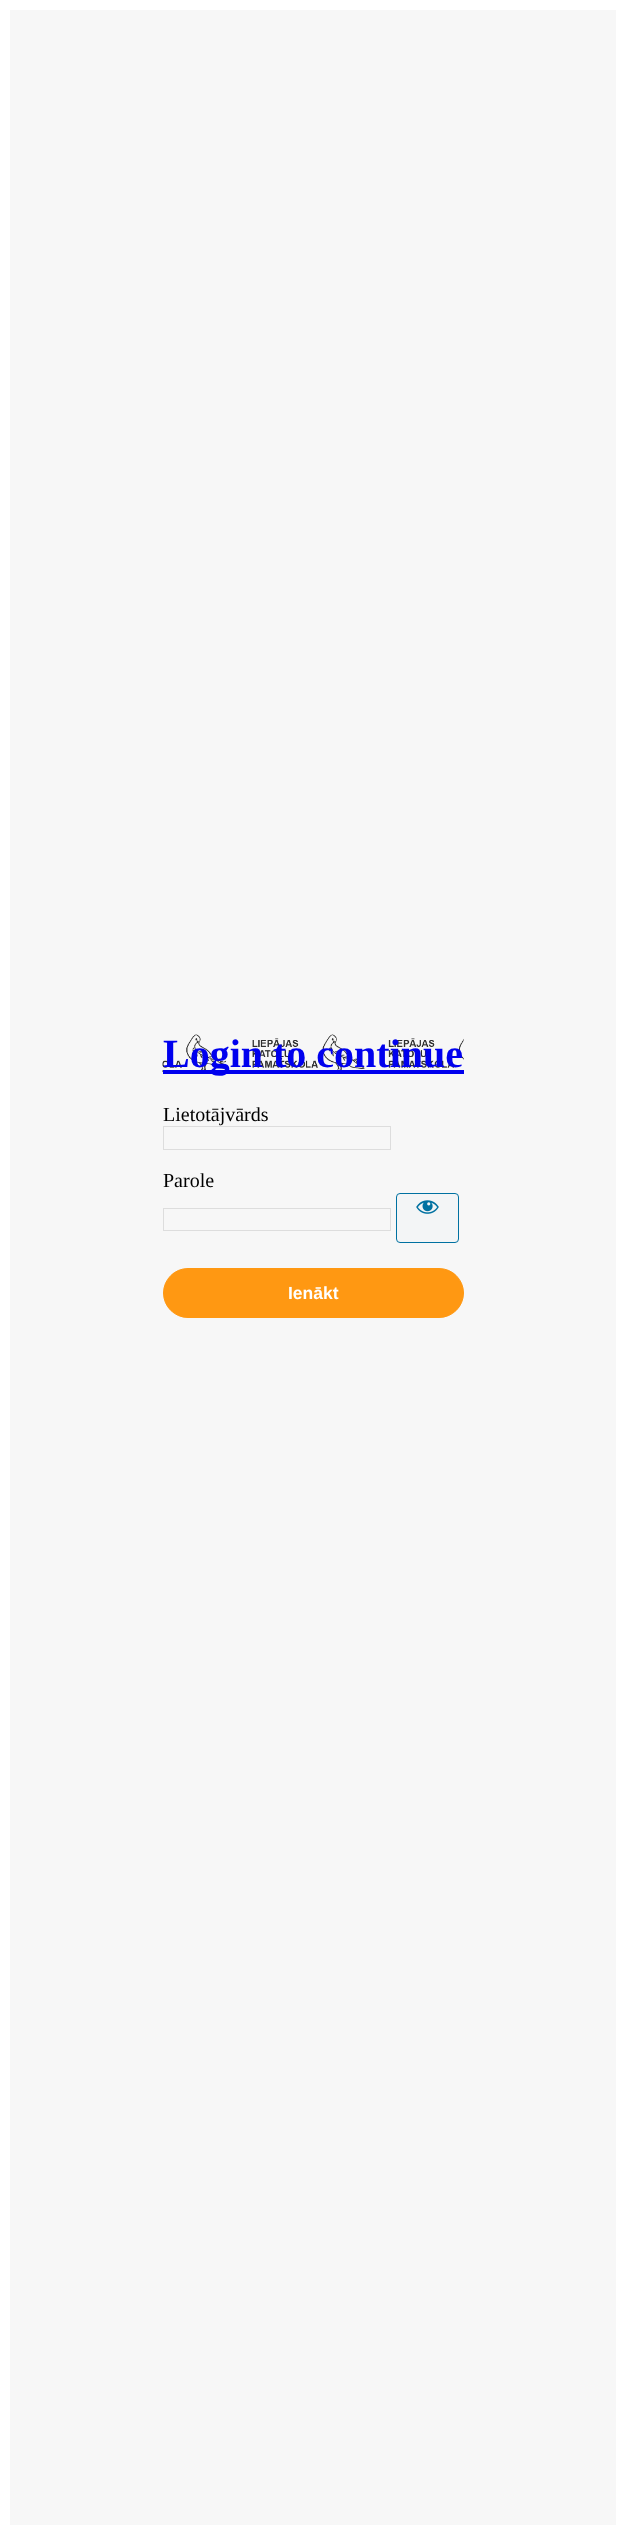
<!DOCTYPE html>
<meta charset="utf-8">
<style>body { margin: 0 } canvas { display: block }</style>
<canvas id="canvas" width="626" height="2525"></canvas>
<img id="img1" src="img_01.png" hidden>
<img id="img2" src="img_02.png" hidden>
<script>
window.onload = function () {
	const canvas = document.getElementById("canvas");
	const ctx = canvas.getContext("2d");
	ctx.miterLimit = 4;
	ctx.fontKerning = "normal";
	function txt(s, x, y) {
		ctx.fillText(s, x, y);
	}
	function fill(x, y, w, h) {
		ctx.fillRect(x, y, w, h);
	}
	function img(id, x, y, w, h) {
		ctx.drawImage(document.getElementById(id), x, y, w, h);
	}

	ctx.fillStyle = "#FFFFFF";
	fill(0, 0, 626, 2525);
	ctx.fillStyle = "#F7F7F7";
	fill(10, 10, 606, 2515);
	img("img1", 162, 1034, 302, 38);
	ctx.fillStyle = "#0000EE";
	fill(163, 1070, 301, 4);
	ctx.strokeStyle = "#DDDDDD";
	ctx.strokeRect(163.5, 1126.5, 227, 23);
	ctx.strokeRect(163.5, 1208.5, 227, 22);
	ctx.fillStyle = "#F3F5F6";
	ctx.beginPath();
	ctx.roundRect(396.5, 1193.5, 62, 49, 3.5);
	ctx.fill();
	ctx.strokeStyle = "#0071A1";
	ctx.stroke();
	img("img2", 416, 1200, 23, 14);
	ctx.fillStyle = "#FF9812";
	ctx.beginPath();
	ctx.roundRect(163.5, 1268.5, 300, 49, 24.5);
	ctx.fill();
	ctx.strokeStyle = "#FF9812";
	ctx.stroke();
	ctx.font = "bold 40px Liberation Serif";
	ctx.fillStyle = "#0000EE";
	txt("Login to continue", 163, 1067);
	ctx.font = "20px Liberation Serif";
	ctx.fillStyle = "#000000";
	txt("Lietotājvārds", 163, 1121);
	txt("Parole", 163, 1187);
	ctx.font = "bold 17.5px Liberation Sans";
	ctx.fillStyle = "#FFFFFF";
	txt("Ienākt", 288, 1299);
};
</script>
